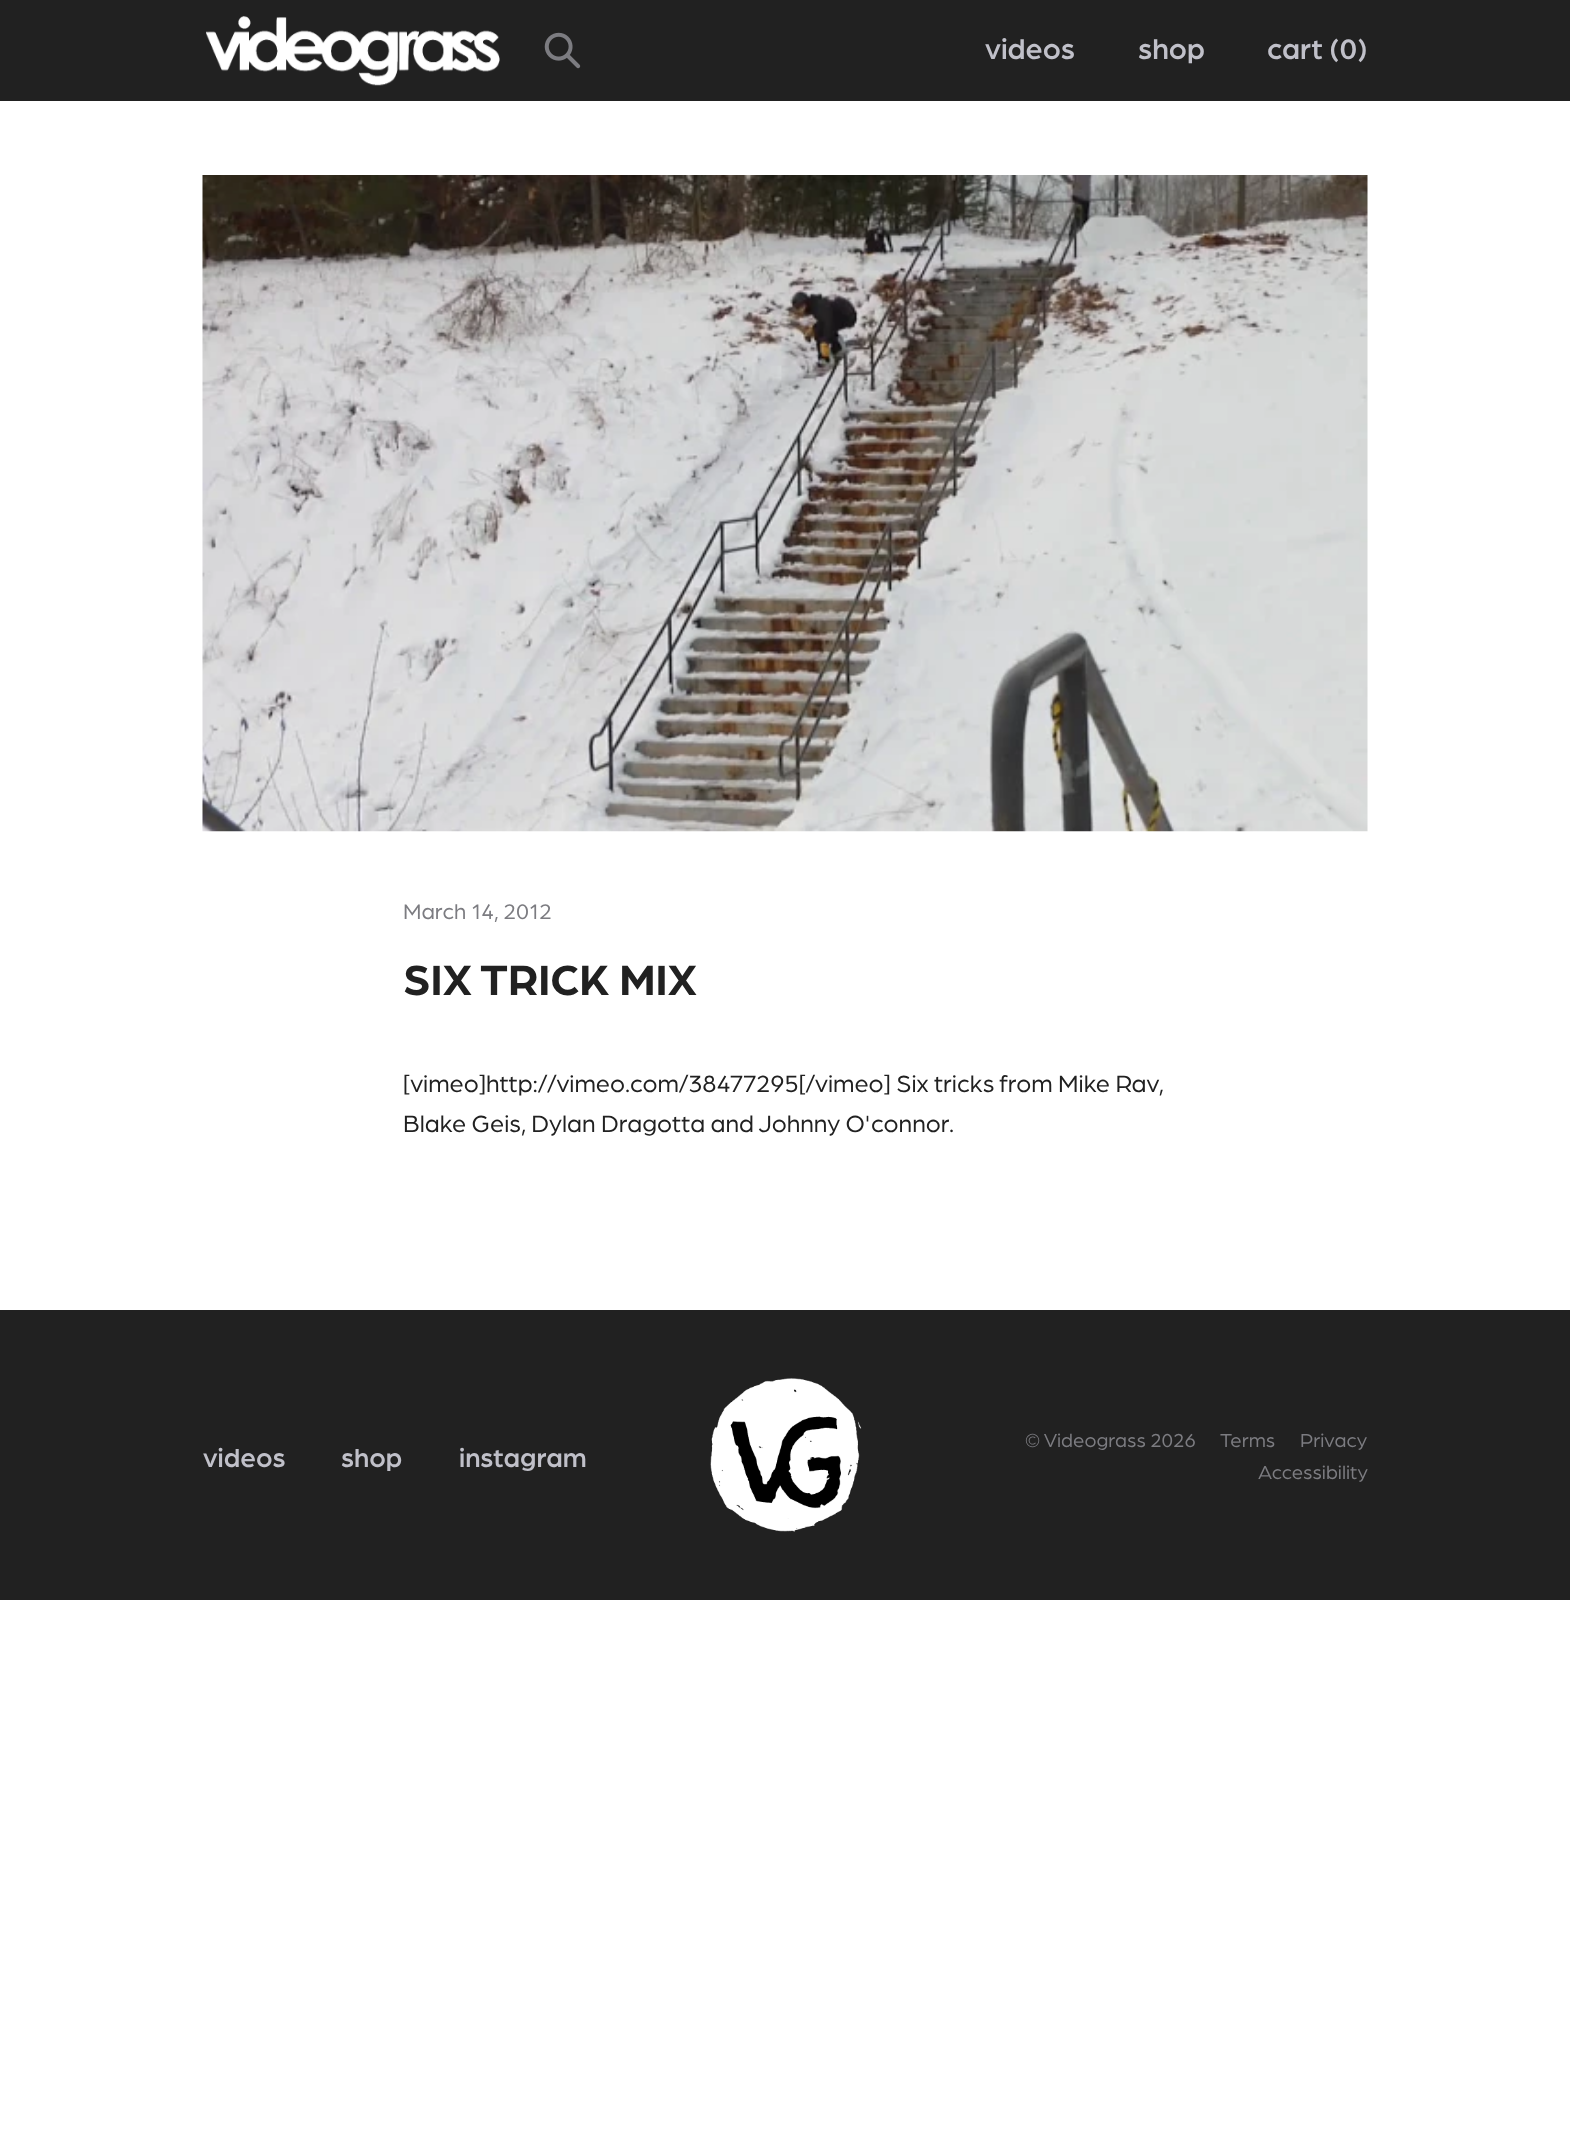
<!DOCTYPE html>
<meta charset="utf-8">
<style>body { margin: 0 } canvas { display: block }</style>
<canvas id="canvas" width="1570" height="2154"></canvas>
<img id="img1" src="img_01.png" hidden>
<img id="img2" src="img_02.png" hidden>
<img id="img3" src="img_03.png" hidden>
<img id="img4" src="img_04.png" hidden>
<script>
window.onload = function () {
	const canvas = document.getElementById("canvas");
	const ctx = canvas.getContext("2d");
	ctx.miterLimit = 4;
	ctx.fontKerning = "normal";
	function txt(s, x, y) {
		ctx.fillText(s, x, y);
	}
	function fill(x, y, w, h) {
		ctx.fillRect(x, y, w, h);
	}
	function img(id, x, y, w, h) {
		ctx.drawImage(document.getElementById(id), x, y, w, h);
	}

	ctx.fillStyle = "#FFFFFF";
	fill(0, 0, 1570, 2154);
	ctx.fillStyle = "#212121";
	fill(0, 0, 1570, 101);
	img("img1", 206, 16, 294, 70);
	img("img2", 544, 32, 37, 37);
	img("img3", 202, 175, 1166, 657);
	fill(0, 1310, 1570, 290);
	img("img4", 710, 1378, 152, 154);
	ctx.font = "500 30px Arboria";
	ctx.fillStyle = "#C0C0C9";
	txt("videos", 985, 59);
	txt("shop", 1138, 59);
	txt("cart (0)", 1267, 59);
	ctx.font = "22.5px Arboria";
	ctx.fillStyle = "#7C7C81";
	txt("March 14, 2012", 403, 919);
	ctx.font = "bold 45px Arboria";
	ctx.fillStyle = "#212121";
	txt("SIX TRICK MIX", 403, 995);
	ctx.font = "25px Arboria";
	txt("[vimeo]http://vimeo.com/38477295[/vimeo] Six tricks from Mike Rav,", 403, 1092);
	txt("Blake Geis, Dylan Dragotta and", 403, 1132);
	txt("Johnny O'connor.", 758, 1132);
	ctx.font = "500 27.5px Arboria";
	ctx.fillStyle = "#C0C0C9";
	txt("videos", 203, 1467);
	txt("shop", 341, 1467);
	txt("instagram", 459, 1467);
	ctx.font = "20px Arboria";
	ctx.fillStyle = "#7C7C81";
	txt("© Videograss 2026", 1025, 1447);
	txt("Terms", 1220, 1447);
	txt("Privacy", 1300, 1447);
	txt("Accessibility", 1258, 1479);
};
</script>
